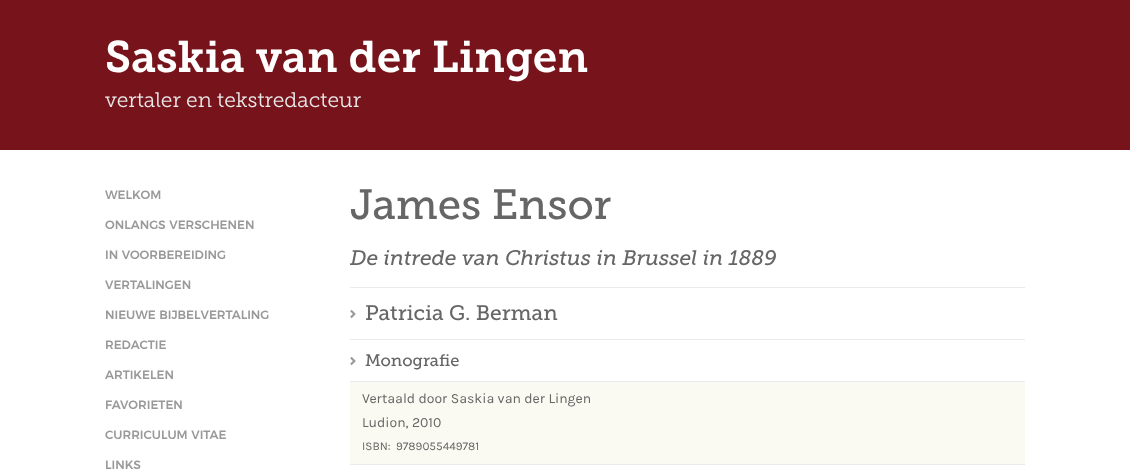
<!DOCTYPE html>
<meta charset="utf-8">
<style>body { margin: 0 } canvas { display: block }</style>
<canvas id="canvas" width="1130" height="470"></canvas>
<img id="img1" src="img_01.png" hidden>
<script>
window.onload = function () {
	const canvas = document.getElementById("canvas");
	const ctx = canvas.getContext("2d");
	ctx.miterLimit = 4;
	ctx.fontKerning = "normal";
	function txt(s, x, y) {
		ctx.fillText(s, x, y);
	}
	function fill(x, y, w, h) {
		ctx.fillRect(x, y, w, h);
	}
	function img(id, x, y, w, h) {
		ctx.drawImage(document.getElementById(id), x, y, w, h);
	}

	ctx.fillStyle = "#FFFFFF";
	fill(0, 0, 1130, 470);
	ctx.fillStyle = "#77131B";
	fill(0, 0, 1130, 150);
	ctx.fillStyle = "#EAEAEA";
	fill(350, 287, 675, 1);
	fill(350, 339, 675, 1);
	img("img1", 350, 310, 6, 8);
	img("img1", 350, 357, 6, 8);
	ctx.fillStyle = "#FBFAF2";
	fill(350, 382, 675, 82);
	ctx.fillStyle = "#EAEAEA";
	fill(350, 381, 675, 1);
	fill(350, 464, 675, 1);
	ctx.font = "44px Museo Slab";
	ctx.fillStyle = "#FFFFFF";
	txt("Saskia van der Lingen", 105, 72);
	ctx.font = "21px 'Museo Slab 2'";
	ctx.fillStyle = "#EAEAEA";
	txt("vertaler en tekstredacteur", 105, 107);
	ctx.font = "500 12px Montserrat";
	ctx.fillStyle = "#999999";
	txt("WELKOM", 105, 199);
	txt("ONLANGS VERSCHENEN", 105, 229);
	txt("IN VOORBEREIDING", 105, 259);
	txt("VERTALINGEN", 105, 289);
	txt("NIEUWE BIJBELVERTALING", 105, 319);
	txt("REDACTIE", 105, 349);
	txt("ARTIKELEN", 105, 379);
	txt("FAVORIETEN", 105, 409);
	txt("CURRICULUM VITAE", 105, 439);
	txt("LINKS", 105, 469);
	ctx.font = "42px 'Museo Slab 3'";
	ctx.fillStyle = "#666666";
	txt("James Ensor", 350, 219);
	ctx.font = "italic 21px Museo Slab";
	txt("De intrede van Christus in Brussel in 1889", 350, 265);
	ctx.font = "21px 'Museo Slab 3'";
	txt("Patricia G. Berman", 365, 320);
	ctx.font = "16.5px 'Museo Slab 3'";
	txt("Monografie", 365, 366);
	ctx.font = "14px Karla";
	txt("Vertaald door Saskia van der Lingen", 362, 403);
	txt("Ludion, 2010", 362, 427);
	ctx.font = "11.75px Karla";
	txt("ISBN:", 362, 450);
	txt("9789055449781", 396, 450);
};
</script>
